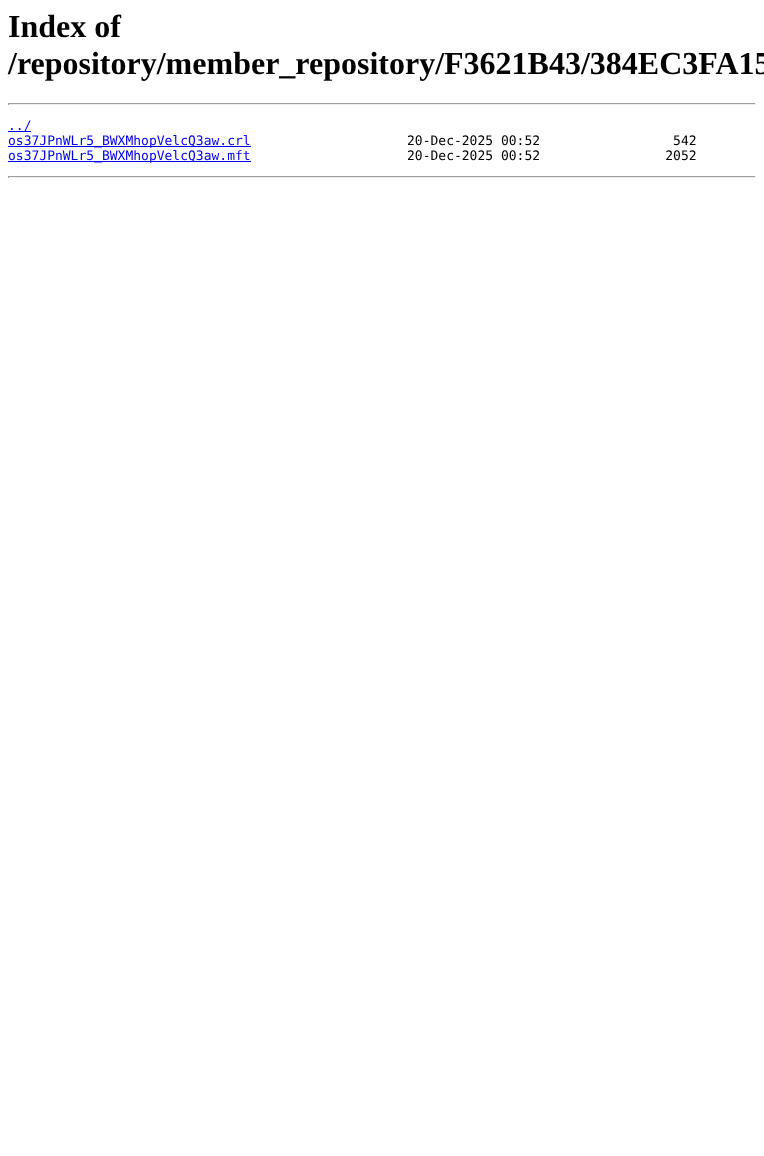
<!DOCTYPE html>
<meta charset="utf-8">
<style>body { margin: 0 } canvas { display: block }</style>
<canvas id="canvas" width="764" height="1156"></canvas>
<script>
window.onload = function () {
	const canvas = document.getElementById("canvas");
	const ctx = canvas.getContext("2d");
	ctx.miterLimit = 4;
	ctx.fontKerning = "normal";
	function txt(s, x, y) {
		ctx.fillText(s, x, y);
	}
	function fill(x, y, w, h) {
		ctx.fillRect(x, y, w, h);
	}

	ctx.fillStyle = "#FFFFFF";
	fill(0, 0, 764, 1156);
	ctx.fillStyle = "#9F9F9F";
	fill(8, 103, 748, 1);
	ctx.fillStyle = "#EEEEEE";
	fill(755, 103, 1, 2);
	fill(8, 104, 748, 1);
	ctx.fillStyle = "#9F9F9F";
	fill(8, 103, 1, 2);
	ctx.fillStyle = "#0000EE";
	fill(8, 131, 23, 1);
	fill(8, 146, 243, 1);
	fill(8, 161, 243, 1);
	ctx.fillStyle = "#9F9F9F";
	fill(8, 176, 748, 1);
	ctx.fillStyle = "#EEEEEE";
	fill(755, 176, 1, 2);
	fill(8, 177, 748, 1);
	ctx.fillStyle = "#9F9F9F";
	fill(8, 176, 1, 2);
	ctx.font = "bold 32px Liberation Serif";
	ctx.fillStyle = "#000000";
	txt("Index of", 8, 37);
	txt("/repository/member_repository/F3621B43/384EC3FA15", 8, 74);
	ctx.font = "13px DejaVu Sans Mono";
	ctx.fillStyle = "#0000EE";
	txt("../", 8, 130);
	txt("os37JPnWLr5_BWXMhopVelcQ3aw.crl", 8, 145);
	ctx.fillStyle = "#000000";
	txt("20-Dec-2025 00:52                 542", 407, 145);
	ctx.fillStyle = "#0000EE";
	txt("os37JPnWLr5_BWXMhopVelcQ3aw.mft", 8, 160);
	ctx.fillStyle = "#000000";
	txt("20-Dec-2025 00:52                2052", 407, 160);
};
</script>
